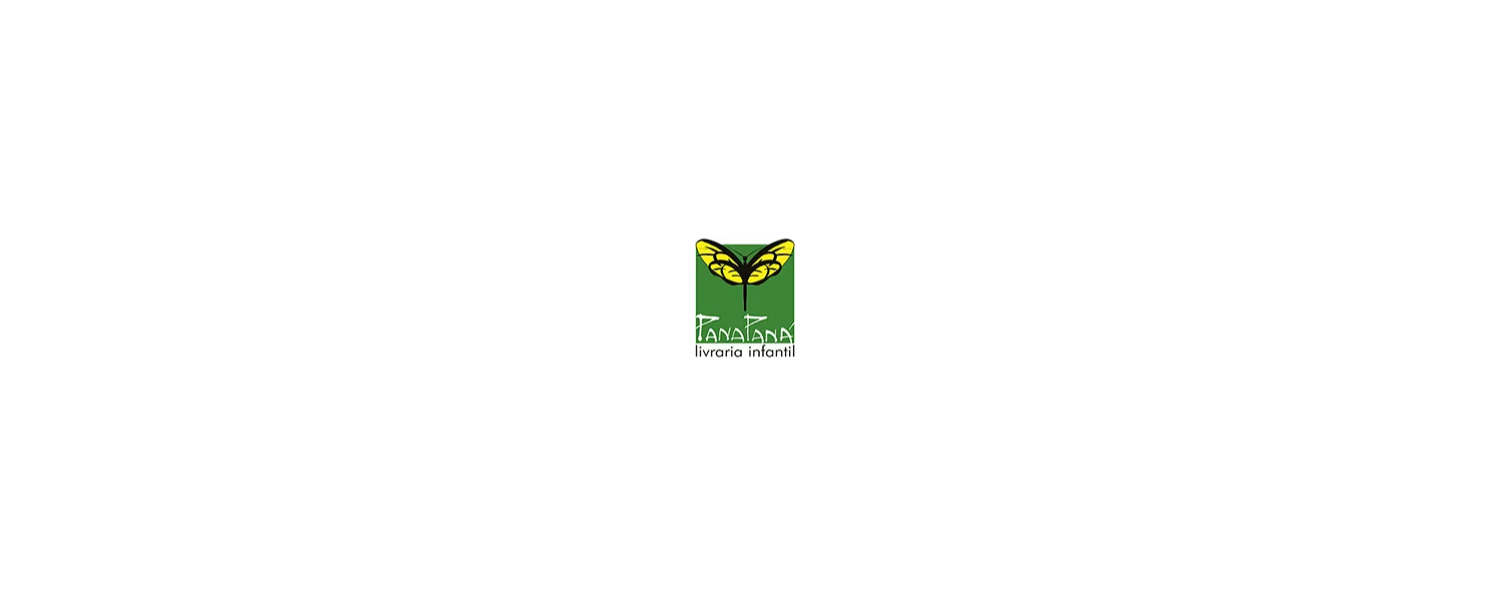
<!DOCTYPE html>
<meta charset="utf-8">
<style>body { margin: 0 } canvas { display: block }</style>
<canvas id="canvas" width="1490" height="596"></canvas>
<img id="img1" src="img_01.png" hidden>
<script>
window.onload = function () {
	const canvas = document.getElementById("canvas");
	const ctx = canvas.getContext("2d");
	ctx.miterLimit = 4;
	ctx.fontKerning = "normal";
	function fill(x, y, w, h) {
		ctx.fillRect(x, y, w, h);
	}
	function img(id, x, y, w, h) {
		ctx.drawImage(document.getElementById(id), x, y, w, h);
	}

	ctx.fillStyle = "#FFFFFF";
	fill(0, 0, 1490, 596);
	img("img1", 695, 238, 100, 120);
};
</script>
